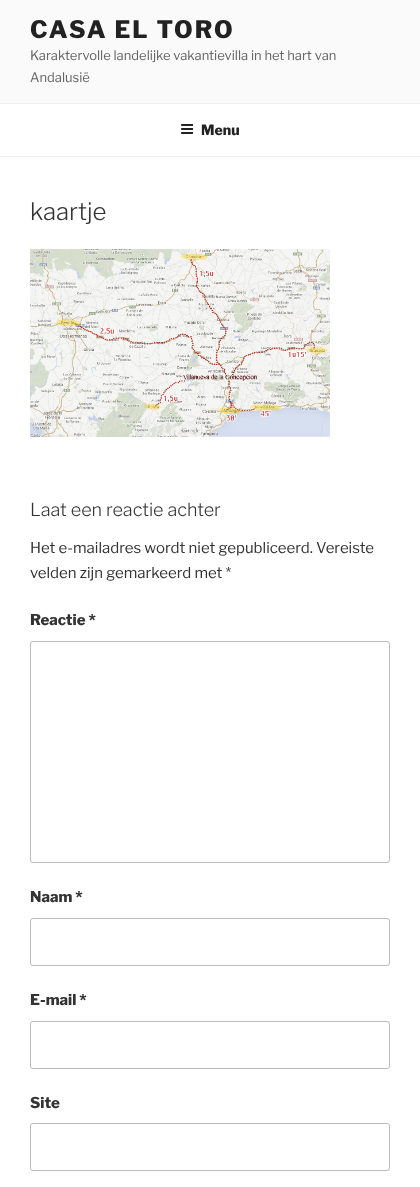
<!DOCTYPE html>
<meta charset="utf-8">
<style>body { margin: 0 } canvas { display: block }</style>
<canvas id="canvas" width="420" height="1187"></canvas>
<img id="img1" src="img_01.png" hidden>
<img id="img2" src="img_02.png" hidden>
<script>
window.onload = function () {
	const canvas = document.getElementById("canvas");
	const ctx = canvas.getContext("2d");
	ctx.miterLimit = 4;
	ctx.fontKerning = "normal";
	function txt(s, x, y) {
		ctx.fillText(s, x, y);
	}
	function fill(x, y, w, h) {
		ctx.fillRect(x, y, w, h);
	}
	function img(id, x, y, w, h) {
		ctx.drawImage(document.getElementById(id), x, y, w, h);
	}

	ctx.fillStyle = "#FFFFFF";
	fill(0, 0, 420, 1187);
	ctx.fillStyle = "#FAFAFA";
	fill(0, 0, 420, 103);
	ctx.fillStyle = "#EEEEEE";
	fill(0, 103, 420, 1);
	fill(0, 156, 420, 1);
	img("img1", 181, 124, 13, 10);
	img("img2", 30, 249, 300, 188);
	ctx.beginPath();
	ctx.roundRect(30.5, 641.5, 359, 221, 2.5);
	ctx.strokeStyle = "#BBBBBB";
	ctx.stroke();
	ctx.beginPath();
	ctx.roundRect(30.5, 918.5, 359, 47, 2.5);
	ctx.stroke();
	ctx.beginPath();
	ctx.roundRect(30.5, 1021.5, 359, 47, 2.5);
	ctx.stroke();
	ctx.beginPath();
	ctx.roundRect(30.5, 1123.5, 359, 47, 2.5);
	ctx.stroke();
	ctx.letterSpacing = "2px";
	ctx.font = "800 24px Libre Franklin";
	ctx.fillStyle = "#222222";
	txt("CASA EL TORO", 30, 38);
	ctx.letterSpacing = "0px";
	ctx.font = "13px Libre Franklin";
	ctx.fillStyle = "#666666";
	txt("Karaktervolle landelijke vakantievilla in het hart van", 30, 60);
	txt("Andalusië", 30, 82);
	ctx.font = "800 14px Libre Franklin";
	ctx.fillStyle = "#222222";
	txt("Menu", 201, 135);
	ctx.font = "300 24px Libre Franklin";
	ctx.fillStyle = "#333333";
	txt("kaartje", 30, 220);
	ctx.font = "300 18px Libre Franklin";
	txt("Laat een reactie achter", 30, 516);
	ctx.font = "15px Libre Franklin";
	txt("Het e-mailadres wordt niet gepubliceerd. Vereiste", 30, 553);
	txt("velden zijn gemarkeerd met *", 30, 578);
	ctx.font = "800 15px Libre Franklin";
	txt("Reactie *", 30, 625);
	txt("Naam *", 30, 902);
	txt("E-mail *", 30, 1005);
	txt("Site", 30, 1108);
};
</script>
